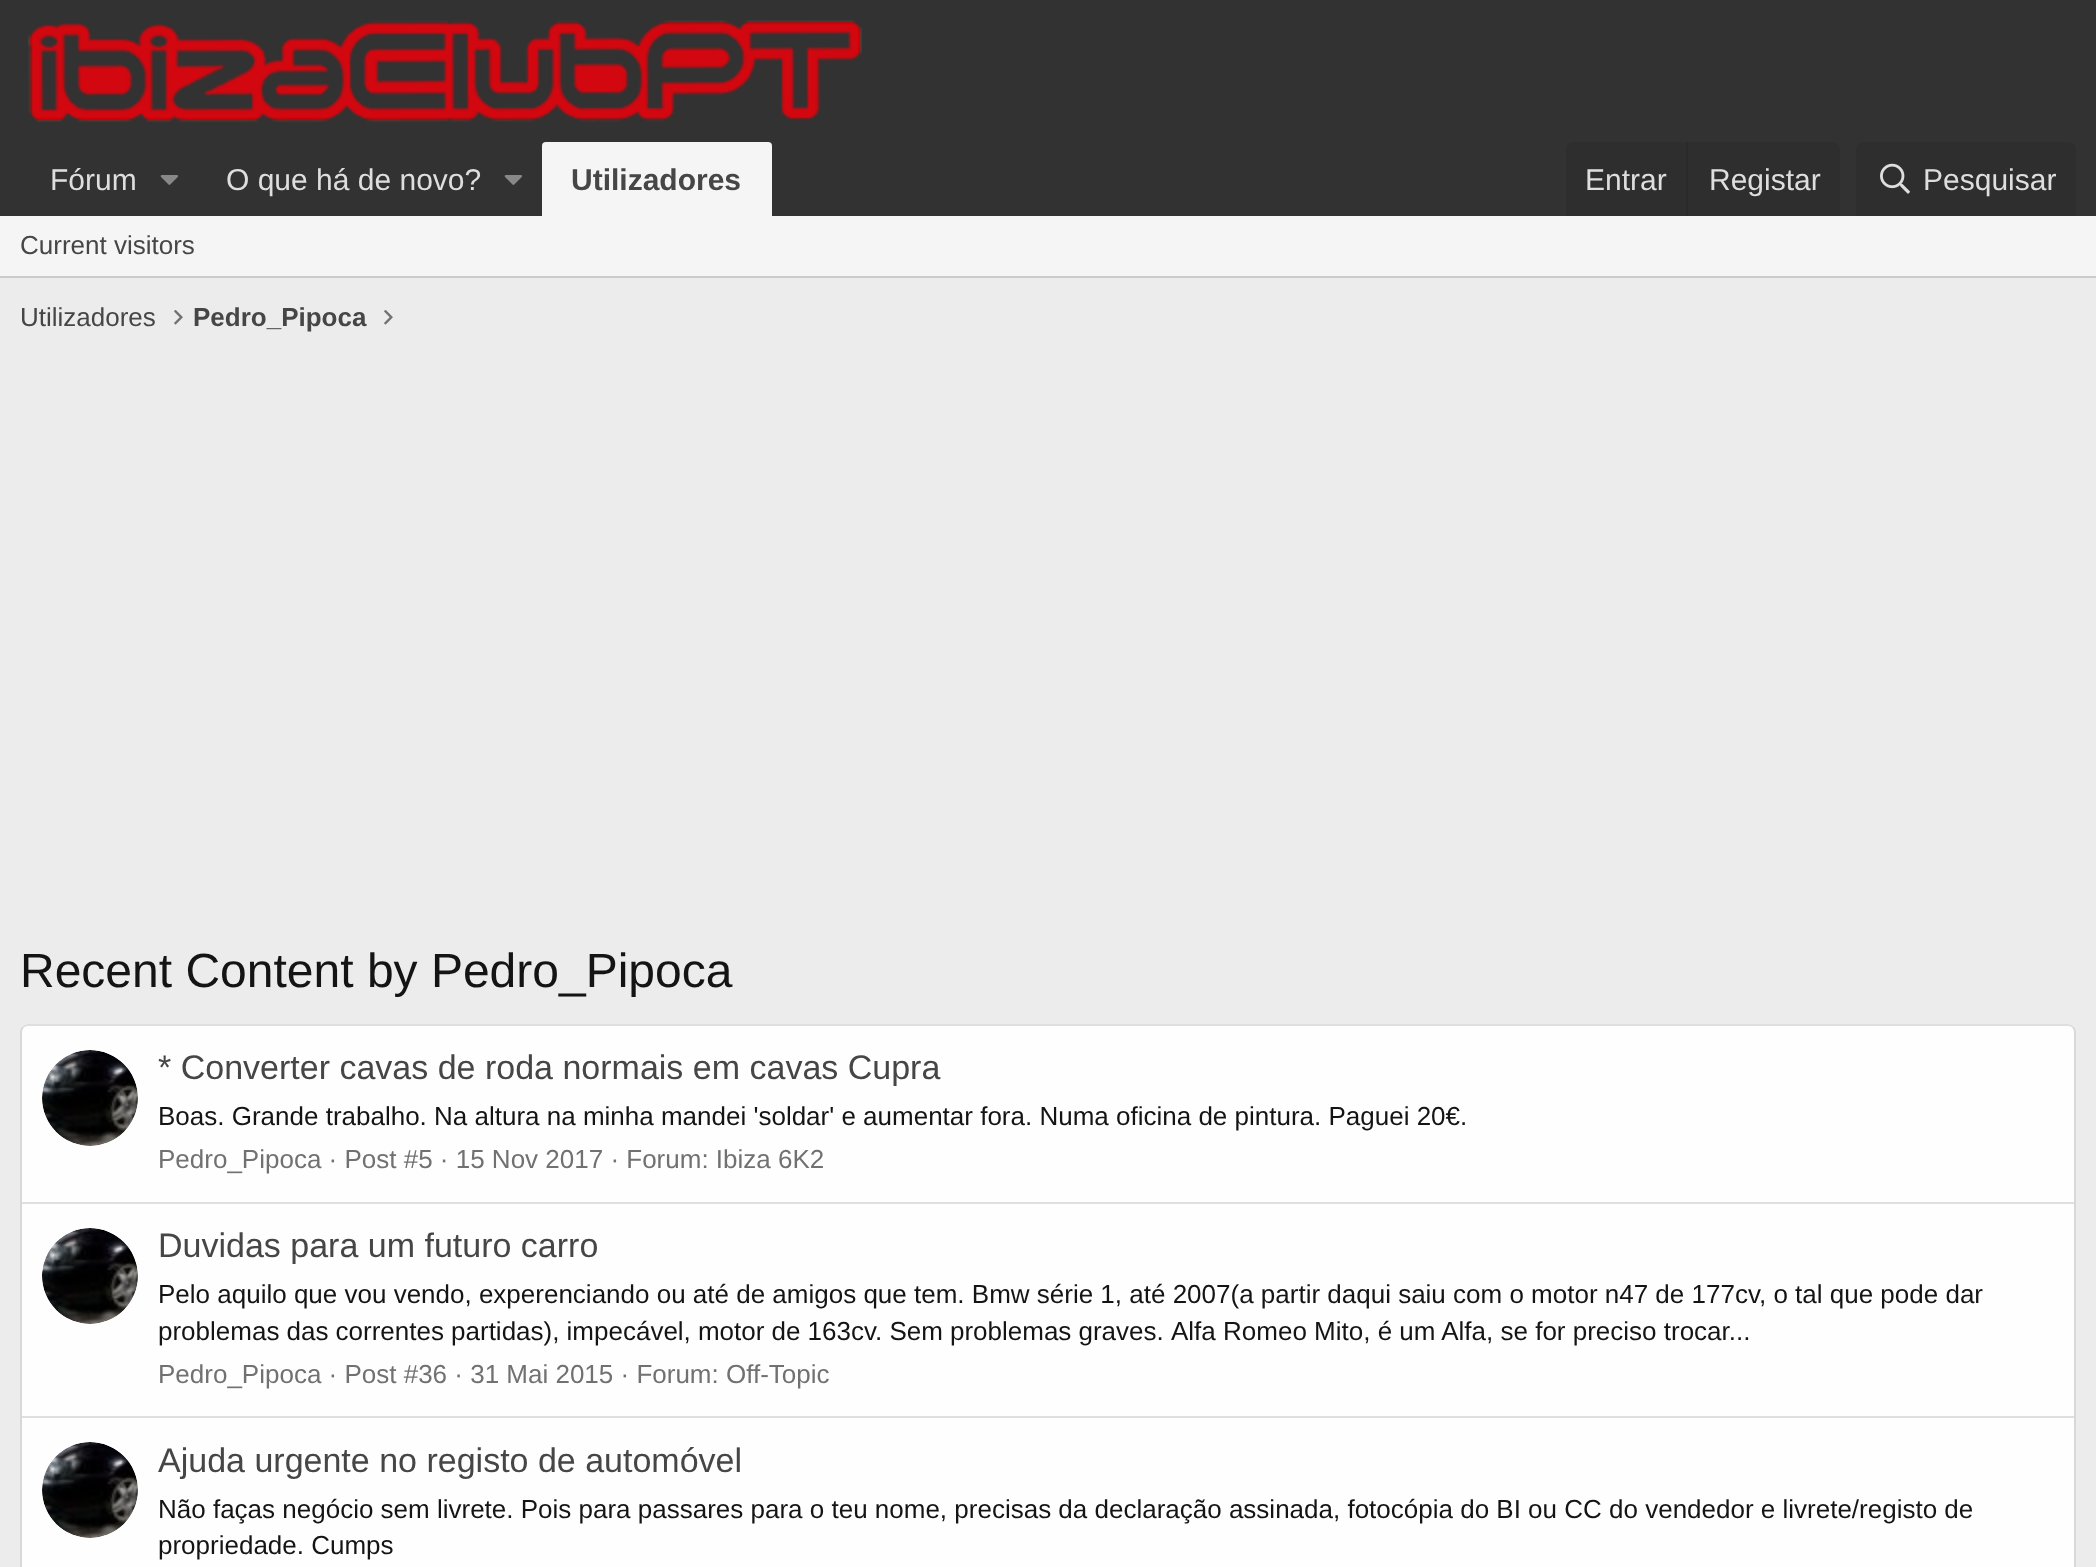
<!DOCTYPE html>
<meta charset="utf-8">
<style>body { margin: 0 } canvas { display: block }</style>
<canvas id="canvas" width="2096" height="1567"></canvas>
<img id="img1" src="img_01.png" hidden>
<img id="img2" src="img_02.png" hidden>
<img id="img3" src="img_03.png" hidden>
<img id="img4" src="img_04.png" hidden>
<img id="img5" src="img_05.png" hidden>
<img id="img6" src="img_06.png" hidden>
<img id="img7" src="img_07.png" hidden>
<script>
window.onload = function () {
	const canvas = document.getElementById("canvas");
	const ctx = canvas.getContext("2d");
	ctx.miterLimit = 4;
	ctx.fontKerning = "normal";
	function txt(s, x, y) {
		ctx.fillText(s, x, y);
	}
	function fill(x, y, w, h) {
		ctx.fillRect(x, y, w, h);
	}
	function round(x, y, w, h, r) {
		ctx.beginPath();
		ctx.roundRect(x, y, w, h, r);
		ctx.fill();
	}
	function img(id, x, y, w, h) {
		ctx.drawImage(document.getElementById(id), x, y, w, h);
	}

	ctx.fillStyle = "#ECECEC";
	fill(0, 0, 2096, 1567);
	ctx.fillStyle = "#323232";
	fill(0, 0, 2096, 216);
	img("img1", 28, 20, 834, 102);
	img("img2", 160, 175, 18, 10);
	img("img2", 504, 175, 18, 10);
	ctx.fillStyle = "#F5F5F5";
	ctx.beginPath();
	ctx.roundRect(542, 142, 230, 74, [4, 4, 0, 0]);
	ctx.fill();
	ctx.fillStyle = "#2E2E2E";
	ctx.beginPath();
	ctx.roundRect(1566, 142, 274, 74, [8, 8, 0, 0]);
	ctx.fill();
	ctx.fillStyle = "#2A2A2A";
	fill(1686, 142, 2, 74);
	ctx.fillStyle = "#2E2E2E";
	ctx.beginPath();
	ctx.roundRect(1856, 142, 220, 74, [8, 8, 0, 0]);
	ctx.fill();
	img("img3", 1880, 163, 30, 31);
	ctx.fillStyle = "#F5F5F5";
	fill(0, 216, 2096, 60);
	ctx.fillStyle = "#CBCBCB";
	fill(0, 276, 2096, 2);
	img("img4", 174, 310, 9, 15);
	img("img4", 384, 310, 9, 15);
	ctx.fillStyle = "#FEFEFE";
	round(20, 1024, 2056, 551, 8);
	ctx.beginPath();
	ctx.moveTo(23, 1027);
	ctx.bezierCurveTo(24.5, 1025.5, 26, 1025, 28, 1025);
	ctx.lineTo(2068, 1025);
	ctx.bezierCurveTo(2070, 1025, 2071.5, 1025.5, 2073, 1027);
	ctx.strokeStyle = "#DFDFDF";
	ctx.lineWidth = 2;
	ctx.stroke();
	ctx.beginPath();
	ctx.moveTo(2073, 1027);
	ctx.bezierCurveTo(2074.5, 1028.5, 2075, 1030, 2075, 1032);
	ctx.lineTo(2075, 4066);
	ctx.bezierCurveTo(2075, 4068, 2074.5, 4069.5, 2073, 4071);
	ctx.strokeStyle = "#D8D8D8";
	ctx.stroke();
	ctx.beginPath();
	ctx.moveTo(23, 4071);
	ctx.bezierCurveTo(21.5, 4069.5, 21, 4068, 21, 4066);
	ctx.lineTo(21, 1032);
	ctx.bezierCurveTo(21, 1030, 21.5, 1028.5, 23, 1027);
	ctx.stroke();
	img("img5", 42, 1050, 96, 96);
	ctx.fillStyle = "#DFDFDF";
	fill(22, 1202, 2052, 2);
	img("img6", 42, 1228, 96, 96);
	fill(22, 1416, 2052, 2);
	img("img7", 42, 1442, 96, 96);
	ctx.font = "30px Liberation Sans";
	ctx.fillStyle = "#DEDEDE";
	txt("Fórum", 50, 190);
	txt("O que há de novo?", 226, 190);
	ctx.font = "bold 30px Liberation Sans";
	ctx.fillStyle = "#464646";
	txt("Utilizadores", 571, 190);
	ctx.font = "30px Liberation Sans";
	ctx.fillStyle = "#DEDEDE";
	txt("Entrar", 1585, 190);
	txt("Registar", 1709, 190);
	txt("Pesquisar", 1923, 190);
	ctx.font = "26px Liberation Sans";
	ctx.fillStyle = "#464646";
	txt("Current visitors", 20, 254);
	txt("Utilizadores", 20, 326);
	ctx.font = "bold 26px Liberation Sans";
	txt("Pedro_Pipoca", 193, 326);
	ctx.font = "48px Liberation Sans";
	ctx.fillStyle = "#141414";
	txt("Recent Content by Pedro_Pipoca", 20, 987);
	ctx.font = "34px Liberation Sans";
	ctx.fillStyle = "#464646";
	txt("* Converter cavas de roda normais em cavas Cupra", 158, 1079);
	ctx.font = "26px Liberation Sans";
	ctx.fillStyle = "#141414";
	txt("Boas. Grande trabalho. Na altura na minha mandei 'soldar' e aumentar fora. Numa oficina de pintura. Paguei 20€.", 158, 1125);
	ctx.fillStyle = "#717171";
	txt("Pedro_Pipoca · Post #5 · 15 Nov 2017 · Forum: Ibiza 6K2", 158, 1168);
	ctx.font = "34px Liberation Sans";
	ctx.fillStyle = "#464646";
	txt("Duvidas para um futuro carro", 158, 1257);
	ctx.font = "26px Liberation Sans";
	ctx.fillStyle = "#141414";
	txt("Pelo aquilo que vou vendo, experenciando ou até de amigos que tem. Bmw série 1, até 2007(a partir daqui saiu com o motor n47 de 177cv, o tal que pode dar", 158, 1303);
	ctx.wordSpacing = "-0.1px";
	txt("problemas das correntes partidas), impecável, motor de 163cv. Sem problemas graves.", 158, 1340);
	ctx.wordSpacing = "0px";
	txt("Alfa Romeo Mito, é um Alfa, se for preciso trocar...", 1171, 1340);
	ctx.fillStyle = "#717171";
	txt("Pedro_Pipoca · Post #36 · 31 Mai 2015 · Forum: Off-Topic", 158, 1383);
	ctx.font = "34px Liberation Sans";
	ctx.fillStyle = "#464646";
	txt("Ajuda urgente no registo de automóvel", 158, 1472);
	ctx.font = "26px Liberation Sans";
	ctx.fillStyle = "#141414";
	txt("Não faças negócio sem livrete. Pois para passares para o teu nome, precisas da declaração assinada, fotocópia do BI ou CC do vendedor e livrete/registo de", 158, 1518);
	txt("propriedade. Cumps", 158, 1554);
};
</script>
